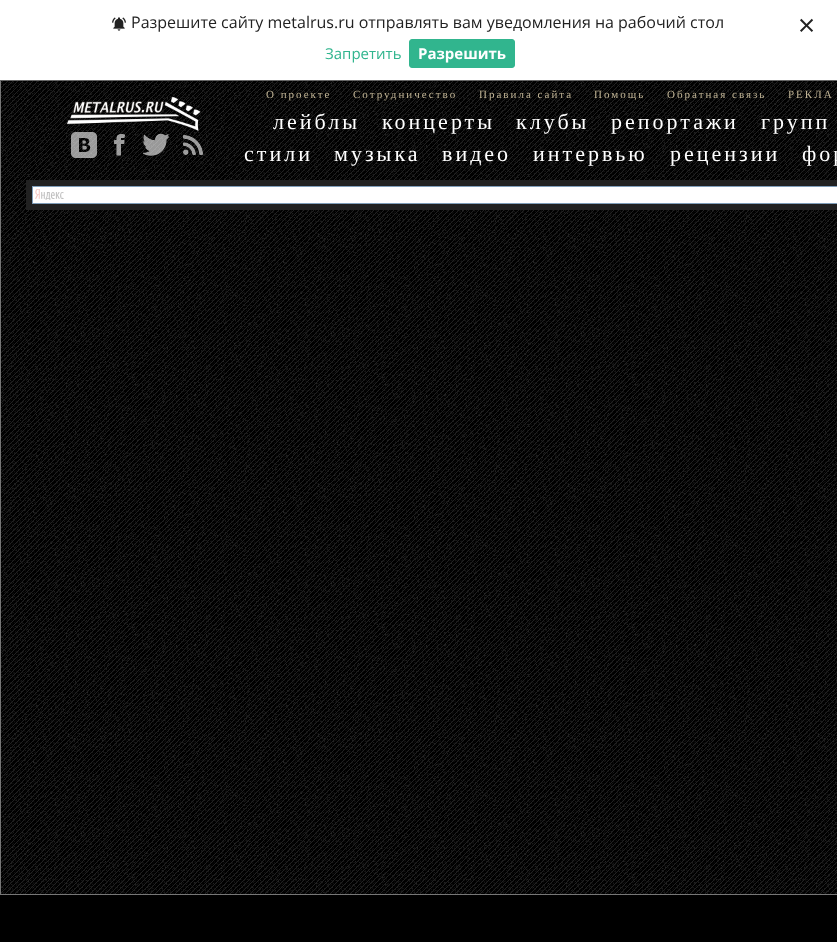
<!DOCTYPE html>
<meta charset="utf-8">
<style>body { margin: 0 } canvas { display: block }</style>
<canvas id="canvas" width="837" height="942"></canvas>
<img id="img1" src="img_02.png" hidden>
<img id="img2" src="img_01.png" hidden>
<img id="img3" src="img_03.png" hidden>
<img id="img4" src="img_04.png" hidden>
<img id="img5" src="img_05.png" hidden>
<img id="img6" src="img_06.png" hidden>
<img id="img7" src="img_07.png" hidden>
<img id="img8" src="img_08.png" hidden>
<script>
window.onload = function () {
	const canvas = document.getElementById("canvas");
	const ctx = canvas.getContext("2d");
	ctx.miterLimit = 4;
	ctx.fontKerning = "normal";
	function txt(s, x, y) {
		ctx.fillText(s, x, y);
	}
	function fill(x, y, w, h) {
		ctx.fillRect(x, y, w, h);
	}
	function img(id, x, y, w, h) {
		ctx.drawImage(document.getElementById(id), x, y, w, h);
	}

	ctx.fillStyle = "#000000";
	fill(0, 0, 837, 942);
	img("img1", 1, 81, 836, 813);
	ctx.strokeStyle = "#777777";
	ctx.strokeRect(0.5, 80.5, 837, 814);
	ctx.fillStyle = "rgba(0, 0, 0, 0.2)";
	ctx.filter = "blur(1px)";
	ctx.beginPath();
	ctx.rect(0, 1, 837, 80);
	ctx.fill();
	ctx.filter = "none";
	ctx.fillStyle = "#FFFFFF";
	fill(0, 0, 837, 80);
	img("img2", 112, 17, 14, 14);
	ctx.fillStyle = "#31B58E";
	ctx.beginPath();
	ctx.roundRect(409.5, 39.5, 105, 28, 2.5);
	ctx.fill();
	ctx.strokeStyle = "#31B58E";
	ctx.stroke();
	img("img3", 67, 96, 134, 35);
	img("img4", 71, 132, 26, 26);
	img("img5", 114, 134, 11, 22);
	img("img6", 143, 133, 26, 23);
	img("img7", 183, 135, 20, 20);
	ctx.fillStyle = "#212121";
	fill(26, 180, 811, 30);
	ctx.fillStyle = "#FFFFFF";
	fill(33, 187, 804, 16);
	img("img8", 35, 189, 29, 11);
	ctx.strokeStyle = "#7F9DB9";
	ctx.strokeRect(32.5, 186.5, 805, 17);
	ctx.font = "16px Open Sans";
	ctx.fillStyle = "#222222";
	txt("Разрешите сайту metalrus.ru отправлять вам уведомления на рабочий стол", 131, 28);
	ctx.font = "15px Open Sans";
	ctx.fillStyle = "#31B58E";
	txt("Запретить", 325, 59);
	ctx.font = "bold 15px Open Sans";
	ctx.fillStyle = "#FFFFFF";
	txt("Разрешить", 418, 59);
	ctx.font = "30px Open Sans";
	ctx.fillStyle = "#222222";
	txt("×", 798, 36);
	ctx.letterSpacing = "2px";
	ctx.font = "11px Liberation Serif";
	ctx.fillStyle = "#C1B495";
	txt("О проекте", 266, 98);
	txt("Сотрудничество", 353, 98);
	txt("Правила сайта", 479, 98);
	txt("Помощь", 594, 98);
	txt("Обратная связь", 667, 98);
	txt("РЕКЛА", 788, 98);
	ctx.letterSpacing = "3px";
	ctx.font = "22px Liberation Serif";
	ctx.fillStyle = "#FFFFFF";
	txt("лейблы", 273, 129);
	txt("концерты", 382, 129);
	txt("клубы", 516, 129);
	txt("репортажи", 611, 129);
	txt("групп", 761, 129);
	txt("стили", 244, 161);
	txt("музыка", 334, 161);
	txt("видео", 442, 161);
	txt("интервью", 533, 161);
	txt("рецензии", 670, 161);
	txt("фор", 802, 161);
};
</script>
